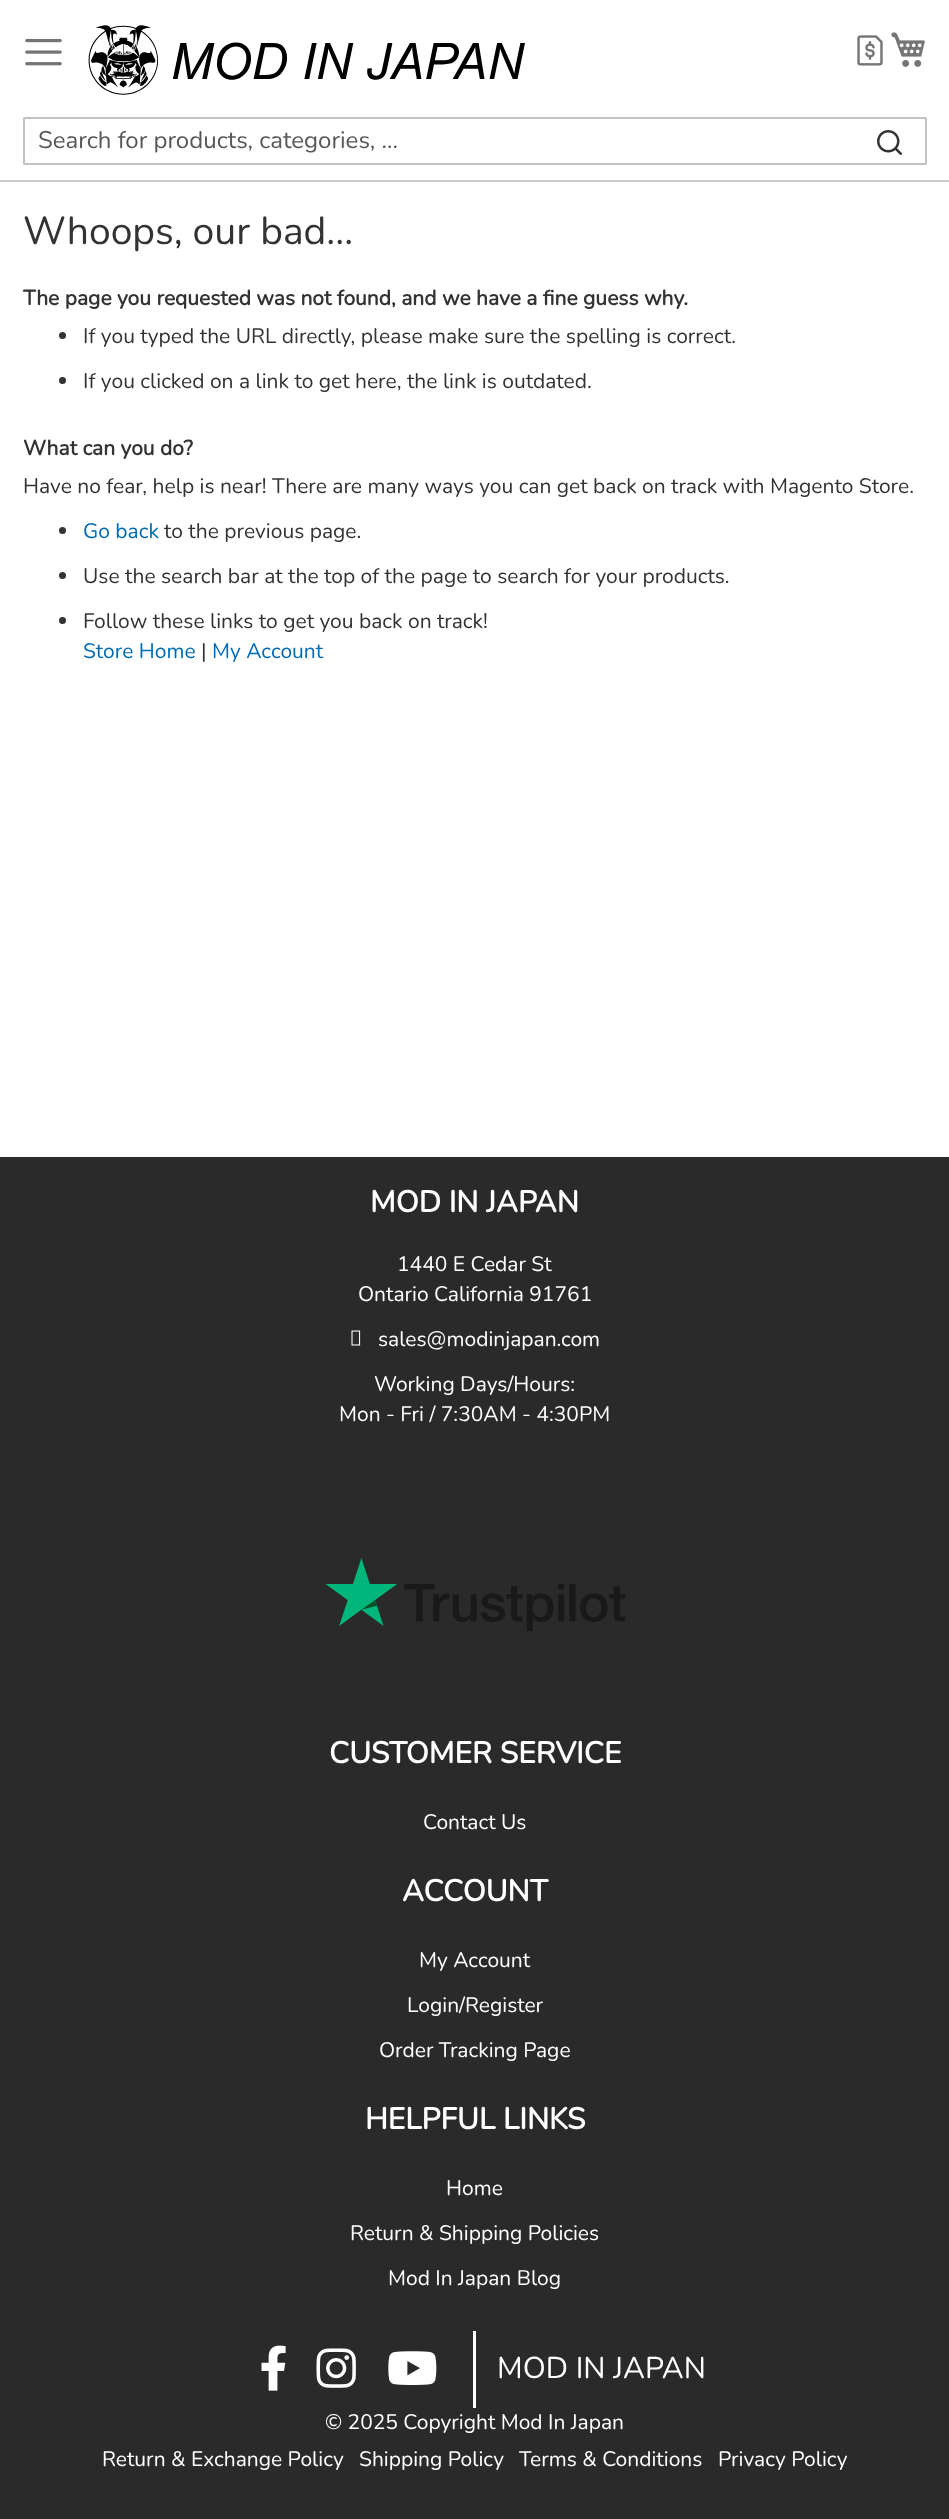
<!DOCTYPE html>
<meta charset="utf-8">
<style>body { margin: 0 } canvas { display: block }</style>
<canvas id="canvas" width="949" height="2519"></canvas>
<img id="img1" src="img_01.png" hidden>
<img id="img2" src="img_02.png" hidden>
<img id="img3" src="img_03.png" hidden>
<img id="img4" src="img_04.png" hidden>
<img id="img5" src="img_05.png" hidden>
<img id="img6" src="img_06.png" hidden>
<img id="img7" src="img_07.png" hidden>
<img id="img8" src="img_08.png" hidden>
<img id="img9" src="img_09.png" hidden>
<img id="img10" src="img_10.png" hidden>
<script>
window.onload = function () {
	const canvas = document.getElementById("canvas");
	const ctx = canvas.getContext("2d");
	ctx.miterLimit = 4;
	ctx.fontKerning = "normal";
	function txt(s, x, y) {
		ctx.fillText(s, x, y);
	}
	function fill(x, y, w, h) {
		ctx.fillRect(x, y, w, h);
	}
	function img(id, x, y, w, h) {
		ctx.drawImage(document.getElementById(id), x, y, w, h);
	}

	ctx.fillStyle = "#FFFFFF";
	fill(0, 0, 949, 2519);
	ctx.fillStyle = "#CCCCCC";
	fill(0, 180, 949, 2);
	img("img1", 25, 38, 37, 28);
	img("img2", 88, 25, 437, 70);
	img("img3", 857, 35, 26, 31);
	img("img4", 891, 32, 34, 35);
	ctx.beginPath();
	ctx.roundRect(24, 118, 902, 46, 0.5);
	ctx.strokeStyle = "#C2C2C2";
	ctx.lineWidth = 2;
	ctx.stroke();
	img("img5", 877, 130, 25, 25);
	ctx.fillStyle = "#333333";
	ctx.beginPath();
	ctx.arc(62.5, 335.5, 3.5, 0, Math.PI * 2);
	ctx.fill();
	ctx.beginPath();
	ctx.arc(62.5, 380.5, 3.5, 0, Math.PI * 2);
	ctx.fill();
	ctx.beginPath();
	ctx.arc(62.5, 530.5, 3.5, 0, Math.PI * 2);
	ctx.fill();
	ctx.beginPath();
	ctx.arc(62.5, 575.5, 3.5, 0, Math.PI * 2);
	ctx.fill();
	ctx.beginPath();
	ctx.arc(62.5, 620.5, 3.5, 0, Math.PI * 2);
	ctx.fill();
	ctx.fillStyle = "#2B2A2A";
	fill(0, 1157, 949, 1362);
	img("img6", 351, 1330, 10, 16);
	img("img7", 325, 1558, 300, 73);
	img("img8", 261, 2345, 25, 46);
	img("img9", 316, 2348, 40, 40);
	img("img10", 388, 2351, 49, 34);
	ctx.fillStyle = "#FFFFFF";
	fill(473, 2331, 3, 77);
	ctx.font = "200 24px Nunito";
	ctx.fillStyle = "#575757";
	txt("Search for products, categories, ...", 38, 148);
	ctx.font = "200 39px Nunito";
	ctx.fillStyle = "#333333";
	txt("Whoops, our bad...", 23, 244);
	ctx.font = "bold 21px Nunito";
	txt("The page you requested was not found, and we have a fine guess why.", 23, 305);
	ctx.font = "200 21px Nunito";
	txt("If you typed the URL directly, please make sure the spelling is correct.", 83, 343);
	txt("If you clicked on a link to get here, the link is outdated.", 83, 388);
	ctx.font = "bold 21px Nunito";
	txt("What can you do?", 23, 455);
	ctx.font = "200 21px Nunito";
	txt("Have no fear, help is near! There are many ways you can get back on track with Magento Store.", 23, 493);
	ctx.fillStyle = "#006BB4";
	txt("Go back", 83, 538);
	ctx.fillStyle = "#333333";
	txt("to the previous page.", 164, 538);
	txt("Use the search bar at the top of the page to search for your products.", 83, 583);
	txt("Follow these links to get you back on track!", 83, 628);
	ctx.fillStyle = "#006BB4";
	txt("Store Home", 83, 658);
	ctx.fillStyle = "#333333";
	txt("|", 201, 658);
	ctx.fillStyle = "#006BB4";
	txt("My Account", 212, 658);
	ctx.font = "bold 30px Nunito";
	ctx.fillStyle = "#FFFFFF";
	txt("MOD IN JAPAN", 370, 1212);
	ctx.font = "200 21px Nunito";
	txt("1440 E Cedar St", 397, 1271);
	txt("Ontario California 91761", 358, 1301);
	txt("sales@modinjapan.com", 378, 1346);
	txt("Working Days/Hours:", 374, 1391);
	txt("Mon - Fri / 7:30AM - 4:30PM", 339, 1421);
	ctx.font = "bold 30px Nunito";
	txt("CUSTOMER SERVICE", 329, 1763);
	ctx.font = "200 21px Nunito";
	txt("Contact Us", 423, 1829);
	ctx.font = "bold 30px Nunito";
	txt("ACCOUNT", 402, 1901);
	ctx.font = "200 21px Nunito";
	txt("My Account", 419, 1967);
	txt("Login/Register", 407, 2012);
	txt("Order Tracking Page", 379, 2057);
	ctx.font = "bold 30px Nunito";
	txt("HELPFUL LINKS", 365, 2129);
	ctx.font = "200 21px Nunito";
	txt("Home", 446, 2195);
	txt("Return & Shipping Policies", 350, 2240);
	txt("Mod In Japan Blog", 388, 2285);
	ctx.font = "200 30px Nunito";
	txt("MOD IN JAPAN", 497, 2378);
	ctx.font = "200 21px Nunito";
	txt("© 2025 Copyright Mod In Japan", 325, 2429);
	txt("Return & Exchange Policy", 102, 2466);
	txt("Shipping Policy", 359, 2466);
	txt("Terms & Conditions", 519, 2466);
	txt("Privacy Policy", 718, 2466);
};
</script>
